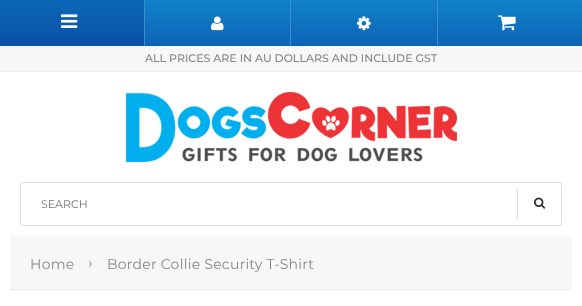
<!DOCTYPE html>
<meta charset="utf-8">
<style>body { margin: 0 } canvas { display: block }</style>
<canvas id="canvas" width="582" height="306"></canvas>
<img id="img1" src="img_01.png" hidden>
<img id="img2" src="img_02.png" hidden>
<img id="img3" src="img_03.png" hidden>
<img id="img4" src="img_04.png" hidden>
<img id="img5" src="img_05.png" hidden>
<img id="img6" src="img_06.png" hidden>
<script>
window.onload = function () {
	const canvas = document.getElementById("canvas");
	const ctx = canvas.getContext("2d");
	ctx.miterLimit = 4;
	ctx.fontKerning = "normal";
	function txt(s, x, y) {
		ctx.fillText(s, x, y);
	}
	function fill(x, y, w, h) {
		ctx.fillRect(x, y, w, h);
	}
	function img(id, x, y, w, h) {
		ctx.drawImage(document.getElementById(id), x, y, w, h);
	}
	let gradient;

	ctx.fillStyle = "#FFFFFF";
	fill(0, 0, 582, 306);
	ctx.fillStyle = "#F7F7F7";
	fill(0, 46, 582, 25);
	ctx.fillStyle = "#EDEDED";
	fill(0, 71, 582, 1);
	gradient = ctx.createLinearGradient(219, 0, 219, 46);
	gradient.addColorStop(0, "#1082C9");
	gradient.addColorStop(1, "#0D63B6");
	ctx.fillStyle = gradient;
	fill(145, 0, 292, 46);
	gradient = ctx.createLinearGradient(72, 0, 72, 46);
	gradient.addColorStop(0, "#0B68B7");
	gradient.addColorStop(1, "#0A4FA5");
	ctx.fillStyle = gradient;
	fill(0, 0, 144, 46);
	ctx.fillStyle = "#3E8CCB";
	fill(144, 0, 1, 46);
	img("img1", 61, 14, 17, 14);
	fill(290, 0, 1, 46);
	img("img2", 211, 16, 13, 15);
	img("img3", 357, 16, 14, 15);
	gradient = ctx.createLinearGradient(510, 0, 510, 46);
	gradient.addColorStop(0, "#1082C9");
	gradient.addColorStop(1, "#0D63B6");
	ctx.fillStyle = gradient;
	fill(438, 0, 144, 46);
	ctx.fillStyle = "#3E8CCB";
	fill(437, 0, 1, 46);
	img("img4", 498, 15, 18, 16);
	img("img5", 126, 92, 331, 70);
	ctx.beginPath();
	ctx.roundRect(20.5, 182.5, 541, 43, 2.5);
	ctx.strokeStyle = "#DCDCDC";
	ctx.stroke();
	ctx.fillStyle = "#DCDCDC";
	fill(517, 189, 1, 30);
	img("img6", 534, 197, 12, 12);
	ctx.fillStyle = "#F7F7F7";
	fill(10, 236, 562, 53);
	ctx.fillStyle = "#E9E9E9";
	fill(10, 289, 562, 1);
	ctx.fillStyle = "#CBCBCB";
	ctx.beginPath();
	ctx.moveTo(89, 268);
	ctx.lineTo(89, 260);
	ctx.lineTo(93, 264);
	ctx.closePath();
	ctx.fill();
	ctx.font = "500 11px Montserrat";
	ctx.fillStyle = "#868686";
	txt("ALL PRICES ARE IN AU DOLLARS AND INCLUDE GST", 145, 62);
	ctx.font = "11px Montserrat";
	ctx.fillStyle = "#757575";
	txt("SEARCH", 41, 208);
	ctx.letterSpacing = "0.25px";
	ctx.font = "14px Montserrat";
	ctx.fillStyle = "#868686";
	txt("Home", 30, 269);
	txt("Border Collie Security T-Shirt", 107, 269);
};
</script>
